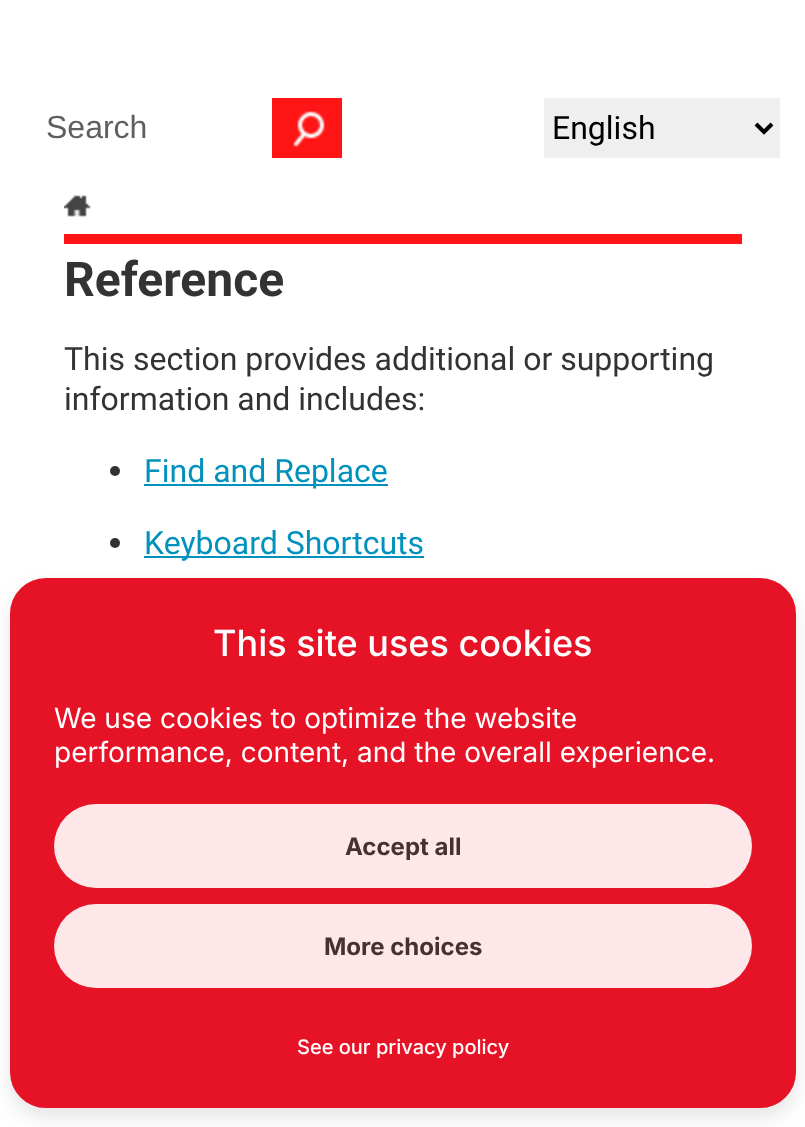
<!DOCTYPE html>
<meta charset="utf-8">
<style>body { margin: 0 } canvas { display: block }</style>
<canvas id="canvas" width="805" height="1127"></canvas>
<img id="img1" src="img_01.png" hidden>
<img id="img2" src="img_02.png" hidden>
<script>
window.onload = function () {
	const canvas = document.getElementById("canvas");
	const ctx = canvas.getContext("2d");
	ctx.miterLimit = 4;
	ctx.fontKerning = "normal";
	function txt(s, x, y) {
		ctx.fillText(s, x, y);
	}
	function fill(x, y, w, h) {
		ctx.fillRect(x, y, w, h);
	}
	function round(x, y, w, h, r) {
		ctx.beginPath();
		ctx.roundRect(x, y, w, h, r);
		ctx.fill();
	}
	function img(id, x, y, w, h) {
		ctx.drawImage(document.getElementById(id), x, y, w, h);
	}

	ctx.fillStyle = "#FFFFFF";
	fill(0, 0, 805, 1127);
	ctx.fillStyle = "#FF1515";
	fill(272, 98, 70, 60);
	img("img1", 293, 111, 32, 36);
	ctx.fillStyle = "#EFEFEF";
	fill(544, 98, 236, 60);
	ctx.beginPath();
	ctx.moveTo(756, 124);
	ctx.lineTo(764, 132);
	ctx.lineTo(772, 124);
	ctx.strokeStyle = "#000000";
	ctx.lineWidth = 4;
	ctx.stroke();
	ctx.fillStyle = "#FF1515";
	fill(64, 234, 678, 10);
	img("img2", 64, 195, 27, 22);
	ctx.fillStyle = "#333333";
	ctx.beginPath();
	ctx.arc(115, 471, 5, 0, Math.PI * 2);
	ctx.fill();
	ctx.fillStyle = "#0092BC";
	fill(144, 484, 244, 2);
	ctx.fillStyle = "#333333";
	ctx.beginPath();
	ctx.arc(115, 543, 5, 0, Math.PI * 2);
	ctx.fill();
	ctx.fillStyle = "#0092BC";
	fill(144, 556, 280, 2);
	ctx.fillStyle = "rgba(0, 0, 0, 0.1)";
	ctx.filter = "blur(10px)";
	ctx.beginPath();
	ctx.roundRect(10, 588, 786, 530, 36);
	ctx.fill();
	ctx.filter = "none";
	ctx.fillStyle = "#E61226";
	ctx.beginPath();
	ctx.roundRect(11, 579, 784, 528, 35);
	ctx.fill();
	ctx.strokeStyle = "#E61226";
	ctx.lineWidth = 2;
	ctx.stroke();
	ctx.fillStyle = "#FDE7E9";
	round(54, 804, 698, 84, 42);
	round(54, 904, 698, 84, 42);
	ctx.font = "32px Liberation Sans";
	ctx.fillStyle = "#5F5F5F";
	txt("Search", 46, 138);
	ctx.font = "32px Roboto";
	ctx.fillStyle = "#000000";
	txt("English", 552, 139);
	ctx.font = "bold 48px Roboto";
	ctx.fillStyle = "#333333";
	txt("Reference", 64, 296);
	ctx.font = "32px Roboto";
	txt("This section provides additional or supporting", 64, 370);
	txt("information and includes:", 64, 410);
	ctx.fillStyle = "#0092BC";
	txt("Find and Replace", 144, 482);
	txt("Keyboard Shortcuts", 144, 554);
	ctx.font = "500 36px Inter";
	ctx.fillStyle = "#FFFFFF";
	txt("This site uses cookies", 213, 656);
	ctx.font = "28px Inter";
	txt("We use cookies to optimize the website", 54, 728);
	txt("performance, content, and the overall experience.", 54, 762);
	ctx.font = "bold 24px Inter";
	ctx.fillStyle = "#453032";
	txt("Accept all", 345, 855);
	txt("More choices", 324, 955);
	ctx.font = "500 20px Inter";
	ctx.fillStyle = "#FFFFFF";
	txt("See our privacy policy", 297, 1054);
};
</script>
